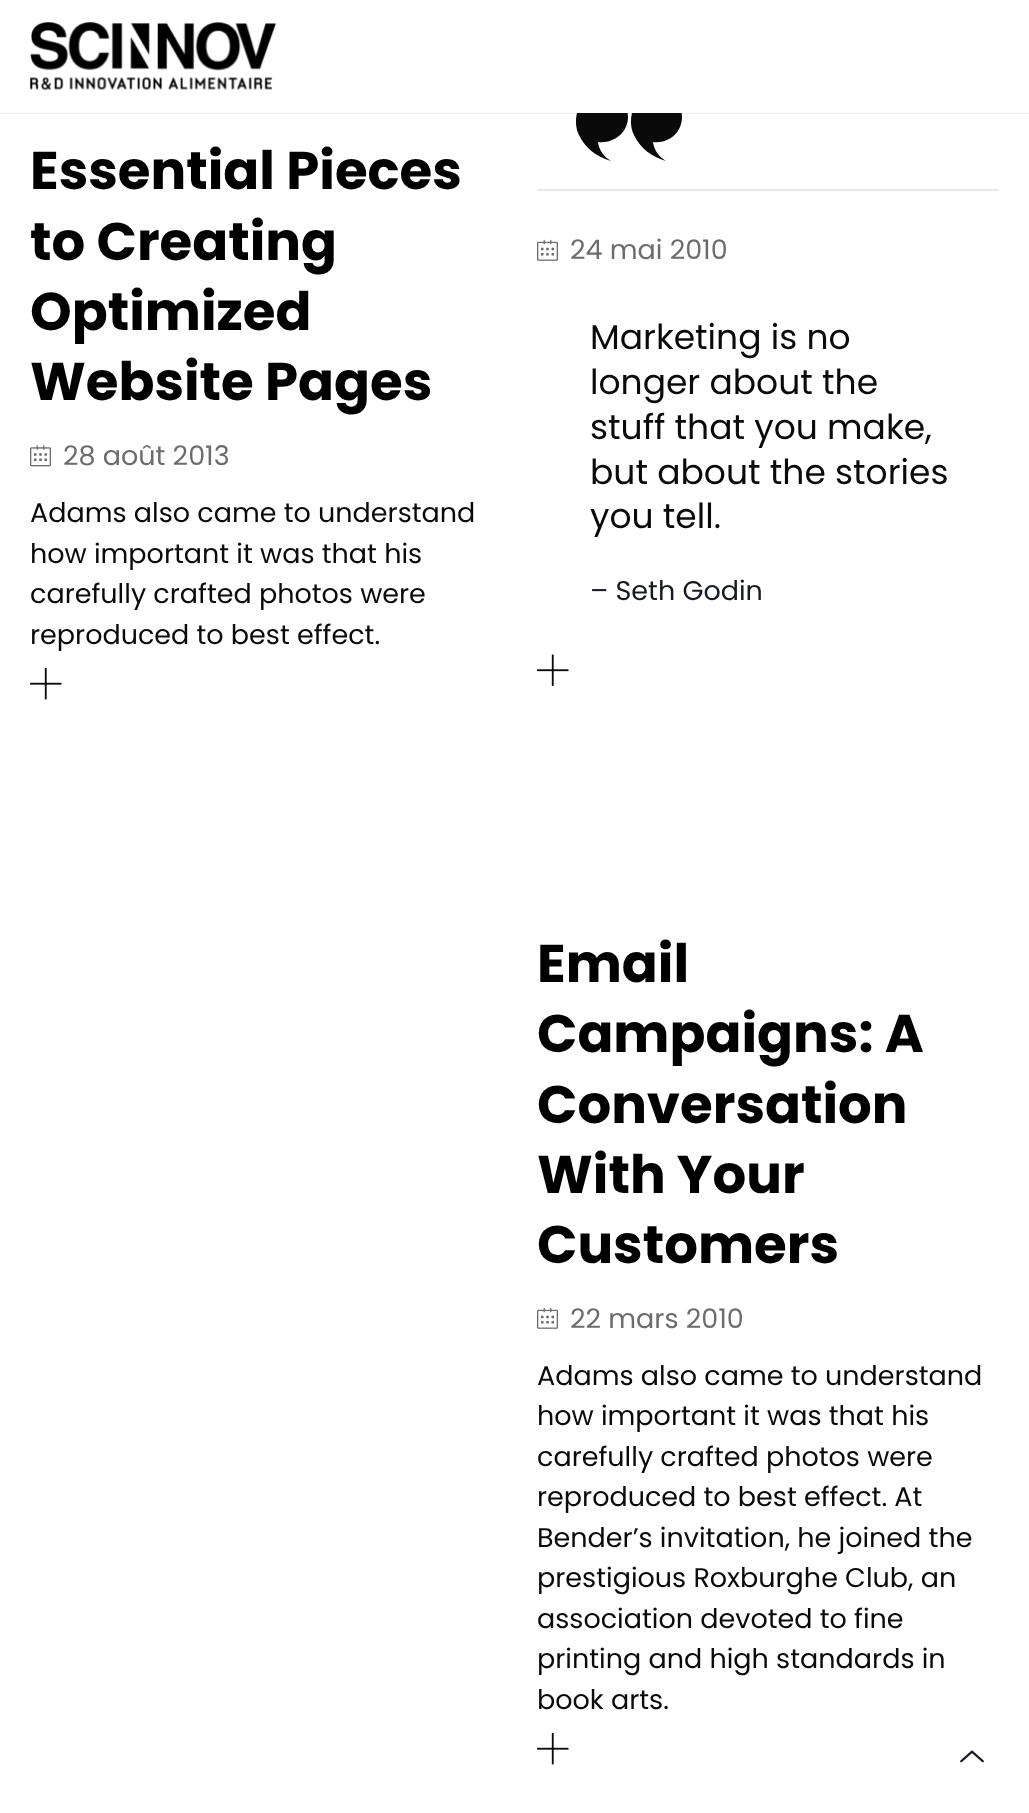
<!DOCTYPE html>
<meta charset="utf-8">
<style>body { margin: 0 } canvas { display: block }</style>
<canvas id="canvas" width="1029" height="1813"></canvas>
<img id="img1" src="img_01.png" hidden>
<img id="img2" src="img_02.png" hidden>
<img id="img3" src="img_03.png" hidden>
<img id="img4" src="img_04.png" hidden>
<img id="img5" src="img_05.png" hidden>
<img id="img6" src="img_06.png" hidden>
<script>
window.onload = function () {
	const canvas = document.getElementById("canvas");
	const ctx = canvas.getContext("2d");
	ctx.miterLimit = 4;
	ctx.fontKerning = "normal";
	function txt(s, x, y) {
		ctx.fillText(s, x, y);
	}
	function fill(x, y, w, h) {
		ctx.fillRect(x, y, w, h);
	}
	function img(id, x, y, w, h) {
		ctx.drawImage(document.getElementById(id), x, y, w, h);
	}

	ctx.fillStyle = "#FFFFFF";
	fill(0, 0, 1029, 1813);
	ctx.fillStyle = "#0A0A0A";
	ctx.beginPath();
	ctx.moveTo(628, 117);
	ctx.bezierCurveTo(628, 88, 584, 83, 577, 113);
	ctx.bezierCurveTo(575, 121, 576, 129, 579, 135);
	ctx.bezierCurveTo(585, 148, 597, 157, 611, 161);
	ctx.bezierCurveTo(604, 157, 599, 150, 598, 142);
	ctx.bezierCurveTo(613, 144, 628, 133, 628, 117);
	ctx.closePath();
	ctx.moveTo(682, 117);
	ctx.bezierCurveTo(682, 88, 639, 83, 632, 113);
	ctx.bezierCurveTo(630, 121, 631, 129, 634, 135);
	ctx.bezierCurveTo(640, 148, 652, 157, 666, 161);
	ctx.bezierCurveTo(659, 157, 654, 150, 653, 142);
	ctx.bezierCurveTo(668, 144, 682, 133, 682, 117);
	ctx.closePath();
	ctx.fill();
	ctx.fillStyle = "rgba(0, 0, 0, 0.08)";
	fill(0, 113, 1029, 1);
	ctx.fillStyle = "#FFFFFF";
	fill(577, 92, 105, 21);
	img("img1", 30, 22, 246, 68);
	img("img2", 30, 445, 21, 22);
	img("img3", 30, 668, 32, 32);
	ctx.fillStyle = "#E8E8E8";
	fill(537, 189, 462, 2);
	img("img4", 537, 239, 21, 22);
	img("img5", 537, 654, 32, 32);
	img("img4", 537, 1307, 21, 22);
	img("img3", 537, 1733, 32, 32);
	img("img6", 960, 1750, 24, 13);
	ctx.font = "bold 53px Poppins";
	ctx.fillStyle = "#000000";
	txt("Essential Pieces", 30, 189);
	txt("to Creating", 30, 260);
	txt("Optimized", 30, 330);
	txt("Website Pages", 30, 400);
	ctx.font = "27px Poppins";
	ctx.fillStyle = "#6C6C6C";
	txt("28 août 2013", 63, 465);
	ctx.fillStyle = "#0A0A0A";
	txt("Adams also came to understand", 30, 522);
	txt("how important it was that his", 30, 563);
	txt("carefully crafted photos were", 30, 603);
	txt("reproduced to best effect.", 30, 644);
	ctx.fillStyle = "#6C6C6C";
	txt("24 mai 2010", 570, 259);
	ctx.font = "34.5px Poppins";
	ctx.fillStyle = "#0A0A0A";
	txt("Marketing is no", 590, 349);
	txt("longer about the", 590, 394);
	txt("stuff that you make,", 590, 439);
	txt("but about the stories", 590, 484);
	txt("you tell.", 590, 528);
	ctx.font = "27px Poppins";
	ctx.fillStyle = "#181A21";
	txt("– Seth Godin", 590, 600);
	ctx.font = "bold 53px Poppins";
	ctx.fillStyle = "#000000";
	txt("Email", 537, 982);
	txt("Campaigns: A", 537, 1052);
	txt("Conversation", 537, 1123);
	txt("With Your", 537, 1193);
	txt("Customers", 537, 1263);
	ctx.font = "27px Poppins";
	ctx.fillStyle = "#6C6C6C";
	txt("22 mars 2010", 570, 1328);
	ctx.fillStyle = "#0A0A0A";
	txt("Adams also came to understand", 537, 1385);
	txt("how important it was that his", 537, 1425);
	txt("carefully crafted photos were", 537, 1466);
	txt("reproduced to best effect. At", 537, 1506);
	txt("Bender’s invitation, he joined the", 537, 1547);
	txt("prestigious Roxburghe Club, an", 537, 1587);
	txt("association devoted to fine", 537, 1628);
	txt("printing and high standards in", 537, 1668);
	txt("book arts.", 537, 1709);
};
</script>
